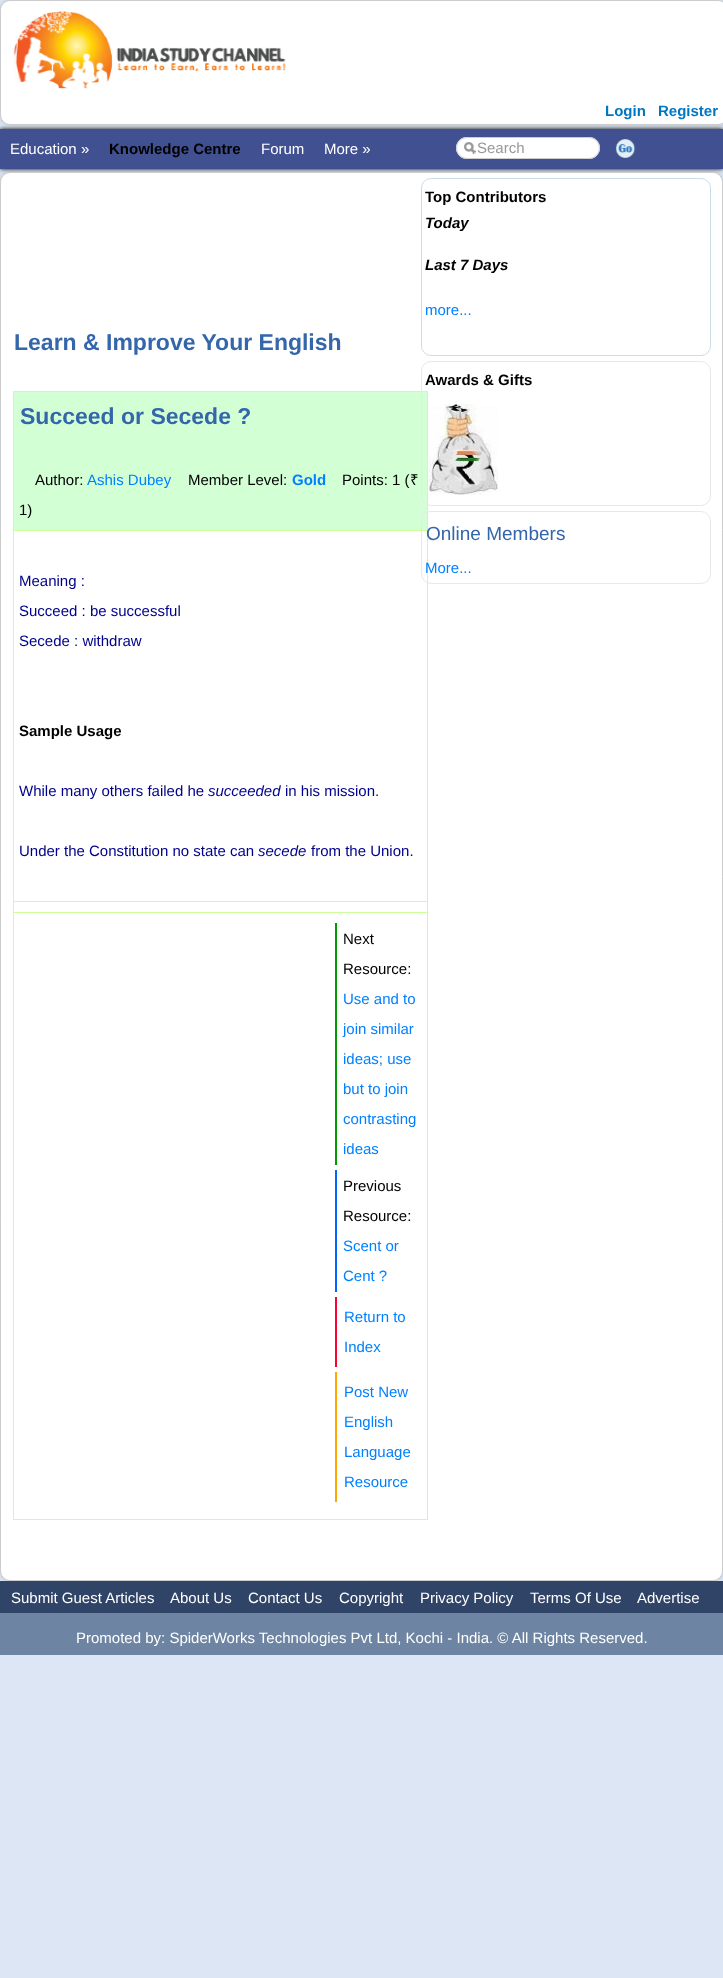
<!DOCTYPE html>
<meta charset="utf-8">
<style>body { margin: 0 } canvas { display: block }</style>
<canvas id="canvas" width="723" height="1978"></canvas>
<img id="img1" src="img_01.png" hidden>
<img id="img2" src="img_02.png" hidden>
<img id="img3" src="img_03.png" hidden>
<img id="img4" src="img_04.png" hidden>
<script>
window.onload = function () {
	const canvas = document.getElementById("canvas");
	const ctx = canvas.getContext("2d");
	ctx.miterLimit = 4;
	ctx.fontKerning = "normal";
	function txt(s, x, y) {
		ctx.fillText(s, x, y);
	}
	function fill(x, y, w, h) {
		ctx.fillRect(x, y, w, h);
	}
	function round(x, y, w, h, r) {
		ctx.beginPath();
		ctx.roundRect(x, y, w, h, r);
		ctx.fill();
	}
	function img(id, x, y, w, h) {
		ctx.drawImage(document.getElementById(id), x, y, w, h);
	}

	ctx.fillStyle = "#DCE6F4";
	fill(0, 0, 723, 1978);
	ctx.fillStyle = "#000000";
	ctx.filter = "blur(2px)";
	ctx.beginPath();
	ctx.rect(0, 129, 723, 40);
	ctx.fill();
	ctx.filter = "none";
	ctx.fillStyle = "#405090";
	fill(0, 129, 723, 40);
	ctx.fillStyle = "rgba(50, 50, 50, 0.18)";
	ctx.filter = "blur(2px)";
	ctx.beginPath();
	ctx.roundRect(0, 0, 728, 125, 10);
	ctx.fill();
	ctx.filter = "none";
	ctx.fillStyle = "#FFFFFF";
	ctx.beginPath();
	ctx.roundRect(0.5, 0.5, 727, 124, 9.5);
	ctx.fill();
	ctx.strokeStyle = "#CCCCCC";
	ctx.stroke();
	img("img1", 13, 11, 273, 78);
	round(456, 137, 144, 22, 11);
	img("img2", 464, 142, 12, 12);
	ctx.beginPath();
	ctx.roundRect(456.5, 137.5, 143, 21, 10.5);
	ctx.stroke();
	img("img3", 615, 139, 21, 19);
	ctx.fillStyle = "rgba(50, 50, 50, 0.18)";
	ctx.filter = "blur(2px)";
	ctx.beginPath();
	ctx.roundRect(0, 172, 723, 1409, 10);
	ctx.fill();
	ctx.filter = "none";
	ctx.fillStyle = "#FFFFFF";
	ctx.beginPath();
	ctx.roundRect(0.5, 172.5, 722, 1408, 9.5);
	ctx.fill();
	ctx.stroke();
	ctx.fillStyle = "#CCFF99";
	fill(13, 391, 415, 1129);
	ctx.fillStyle = "#D3FFD5";
	fill(14, 392, 413, 138);
	ctx.fillStyle = "#FFFFFF";
	fill(14, 531, 413, 370);
	fill(14, 902, 413, 10);
	fill(14, 913, 413, 606);
	ctx.fillStyle = "#009900";
	fill(335, 923, 2, 242);
	ctx.fillStyle = "#0066FF";
	fill(335, 1170, 2, 122);
	ctx.fillStyle = "#FF0033";
	fill(335, 1297, 2, 70);
	ctx.fillStyle = "#FFA500";
	fill(335, 1372, 2, 130);
	ctx.beginPath();
	ctx.roundRect(421.5, 178.5, 289, 177, 9.5);
	ctx.strokeStyle = "#CADDEA";
	ctx.stroke();
	ctx.beginPath();
	ctx.roundRect(421.5, 361.5, 289, 144, 9.5);
	ctx.strokeStyle = "#E8E8E8";
	ctx.stroke();
	img("img4", 429, 404, 69, 91);
	ctx.beginPath();
	ctx.roundRect(421.5, 511.5, 289, 72, 9.5);
	ctx.stroke();
	ctx.fillStyle = "#2F4467";
	fill(0, 1581, 723, 32);
	ctx.fillStyle = "#6D84A2";
	fill(0, 1613, 723, 42);
	ctx.font = "bold 15px Liberation Sans";
	ctx.fillStyle = "#0077C2";
	txt("Login", 605, 116);
	txt("Register", 658, 116);
	ctx.font = "15px Liberation Sans";
	ctx.fillStyle = "#FFFFFF";
	txt("Education »", 10, 154);
	ctx.font = "bold 15px Liberation Sans";
	ctx.fillStyle = "#000000";
	txt("Knowledge Centre", 109, 154);
	ctx.font = "15px Liberation Sans";
	ctx.fillStyle = "#FFFFFF";
	txt("Forum", 261, 154);
	txt("More »", 324, 154);
	ctx.fillStyle = "#999999";
	txt("Search", 477, 153);
	ctx.font = "bold 23px Liberation Sans";
	ctx.fillStyle = "#3366AA";
	txt("Learn & Improve Your English", 14, 350);
	txt("Succeed or Secede ?", 20, 424);
	ctx.font = "15px Liberation Sans";
	ctx.fillStyle = "#000000";
	txt("Author:", 35, 485);
	ctx.fillStyle = "#0080FF";
	txt("Ashis Dubey", 87, 485);
	ctx.fillStyle = "#000000";
	txt("Member Level:", 188, 485);
	ctx.font = "bold 15px Liberation Sans";
	ctx.fillStyle = "#0080FF";
	txt("Gold", 292, 485);
	ctx.font = "15px Liberation Sans";
	ctx.fillStyle = "#000000";
	txt("Points: 1 (", 342, 485);
	ctx.font = "15px Noto Sans";
	txt("₹", 410, 485);
	ctx.font = "15px Liberation Sans";
	txt("1)", 19, 515);
	ctx.fillStyle = "#00008B";
	txt("Meaning :", 19, 586);
	txt("Succeed : be successful", 19, 616);
	txt("Secede : withdraw", 19, 646);
	ctx.font = "bold 15px Liberation Sans";
	ctx.fillStyle = "#000000";
	txt("Sample Usage", 19, 736);
	ctx.font = "15px Liberation Sans";
	ctx.fillStyle = "#00008B";
	txt("While many others failed he", 19, 796);
	ctx.font = "italic 15px Liberation Sans";
	txt("succeeded", 208, 796);
	ctx.font = "15px Liberation Sans";
	txt("in his mission.", 285, 796);
	txt("Under the Constitution no state can", 19, 856);
	ctx.font = "italic 15px Liberation Sans";
	txt("secede", 258, 856);
	ctx.font = "15px Liberation Sans";
	txt("from the Union.", 311, 856);
	ctx.fillStyle = "#000000";
	txt("Next", 343, 944);
	txt("Resource:", 343, 974);
	ctx.fillStyle = "#0080FF";
	txt("Use and to", 343, 1004);
	txt("join similar", 343, 1034);
	txt("ideas; use", 343, 1064);
	txt("but to join", 343, 1094);
	txt("contrasting", 343, 1124);
	txt("ideas", 343, 1154);
	ctx.fillStyle = "#000000";
	txt("Previous", 343, 1191);
	txt("Resource:", 343, 1221);
	ctx.fillStyle = "#0080FF";
	txt("Scent or", 343, 1251);
	txt("Cent ?", 343, 1281);
	txt("Return to", 344, 1322);
	txt("Index", 344, 1352);
	txt("Post New", 344, 1397);
	txt("English", 344, 1427);
	txt("Language", 344, 1457);
	txt("Resource", 344, 1487);
	ctx.font = "bold 15px Liberation Sans";
	ctx.fillStyle = "#000000";
	txt("Top Contributors", 425, 202);
	ctx.font = "italic bold 15px Liberation Sans";
	txt("Today", 425, 228);
	txt("Last 7 Days", 425, 270);
	ctx.font = "15px Liberation Sans";
	ctx.fillStyle = "#0080FF";
	txt("more...", 425, 315);
	ctx.font = "bold 15px Liberation Sans";
	ctx.fillStyle = "#000000";
	txt("Awards & Gifts", 425, 385);
	ctx.font = "19px Liberation Sans";
	ctx.fillStyle = "#3366AA";
	txt("Online Members", 426, 540);
	ctx.font = "15px Liberation Sans";
	ctx.fillStyle = "#0080FF";
	txt("More...", 425, 573);
	ctx.fillStyle = "#FFFFFF";
	txt("Submit Guest Articles", 11, 1603);
	txt("About Us", 170, 1603);
	txt("Contact Us", 248, 1603);
	txt("Copyright", 339, 1603);
	txt("Privacy Policy", 420, 1603);
	txt("Terms Of Use", 530, 1603);
	txt("Advertise", 637, 1603);
	txt("Promoted by: SpiderWorks Technologies Pvt Ltd, Kochi - India. © All Rights Reserved.", 76, 1643);
};
</script>
